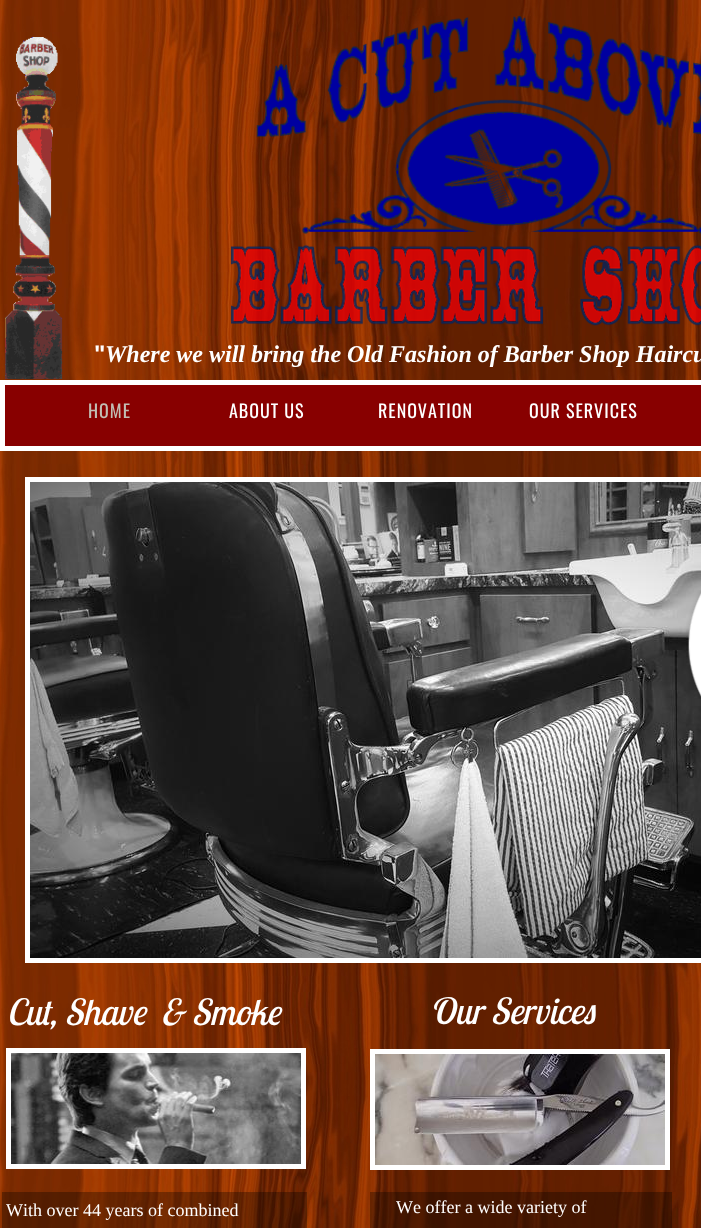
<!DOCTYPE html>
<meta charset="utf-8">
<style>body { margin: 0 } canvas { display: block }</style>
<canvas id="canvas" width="701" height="1228"></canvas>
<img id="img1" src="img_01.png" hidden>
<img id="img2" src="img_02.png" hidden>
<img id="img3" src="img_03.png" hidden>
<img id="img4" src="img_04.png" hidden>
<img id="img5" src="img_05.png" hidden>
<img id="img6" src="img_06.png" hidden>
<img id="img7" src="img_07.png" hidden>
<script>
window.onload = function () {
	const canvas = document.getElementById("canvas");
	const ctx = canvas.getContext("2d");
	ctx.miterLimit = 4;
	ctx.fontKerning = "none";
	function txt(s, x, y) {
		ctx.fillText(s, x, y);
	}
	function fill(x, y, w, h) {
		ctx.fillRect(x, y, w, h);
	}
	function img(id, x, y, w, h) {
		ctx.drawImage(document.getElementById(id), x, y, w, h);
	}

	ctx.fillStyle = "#FFFFFF";
	fill(0, 0, 701, 1228);
	img("img1", 0, 0, 701, 1228);
	img("img2", 5, 37, 58, 342);
	img("img3", 231, 16, 470, 310);
	ctx.fillStyle = "#880000";
	ctx.beginPath();
	ctx.rect(2.5, 382.5, 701, 66);
	ctx.fill();
	ctx.strokeStyle = "#FFFFFF";
	ctx.lineWidth = 5;
	ctx.stroke();
	ctx.strokeRect(27.5, 479.5, 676, 481);
	img("img4", 30, 482, 671, 476);
	img("img5", 686, 590, 15, 109);
	ctx.strokeRect(8.5, 1050.5, 295, 116);
	img("img6", 11, 1053, 290, 111);
	ctx.strokeRect(372.5, 1051.5, 295, 116);
	img("img7", 375, 1054, 290, 111);
	ctx.fillStyle = "rgba(0, 0, 0, 0.3)";
	fill(2, 1192, 305, 36);
	fill(370, 1192, 302, 36);
	ctx.font = "bold 24px Liberation Sans";
	ctx.fillStyle = "#FFFFFF";
	txt("\"", 94, 362);
	ctx.font = "italic bold 24px Liberation Serif";
	txt("Where we will bring the Old Fashion of Barber Shop Haircu", 105, 362);
	ctx.letterSpacing = "1px";
	ctx.font = "18px Oswald";
	ctx.fillStyle = "#C2BEB4";
	txt("HOME", 88, 418);
	ctx.fillStyle = "#FFFFFF";
	txt("ABOUT US", 229, 418);
	txt("RENOVATION", 378, 418);
	txt("OUR SERVICES", 529, 418);
	ctx.letterSpacing = "0px";
	ctx.font = "italic 36px Lobster Two";
	txt("Cut, Shave  & Smoke", 6, 1025);
	txt("Our Services", 429, 1024);
	ctx.font = "18px Liberation Serif";
	txt("With over 44 years of combined", 6, 1216);
	txt("We offer a wide variety of", 396, 1213);
};
</script>
